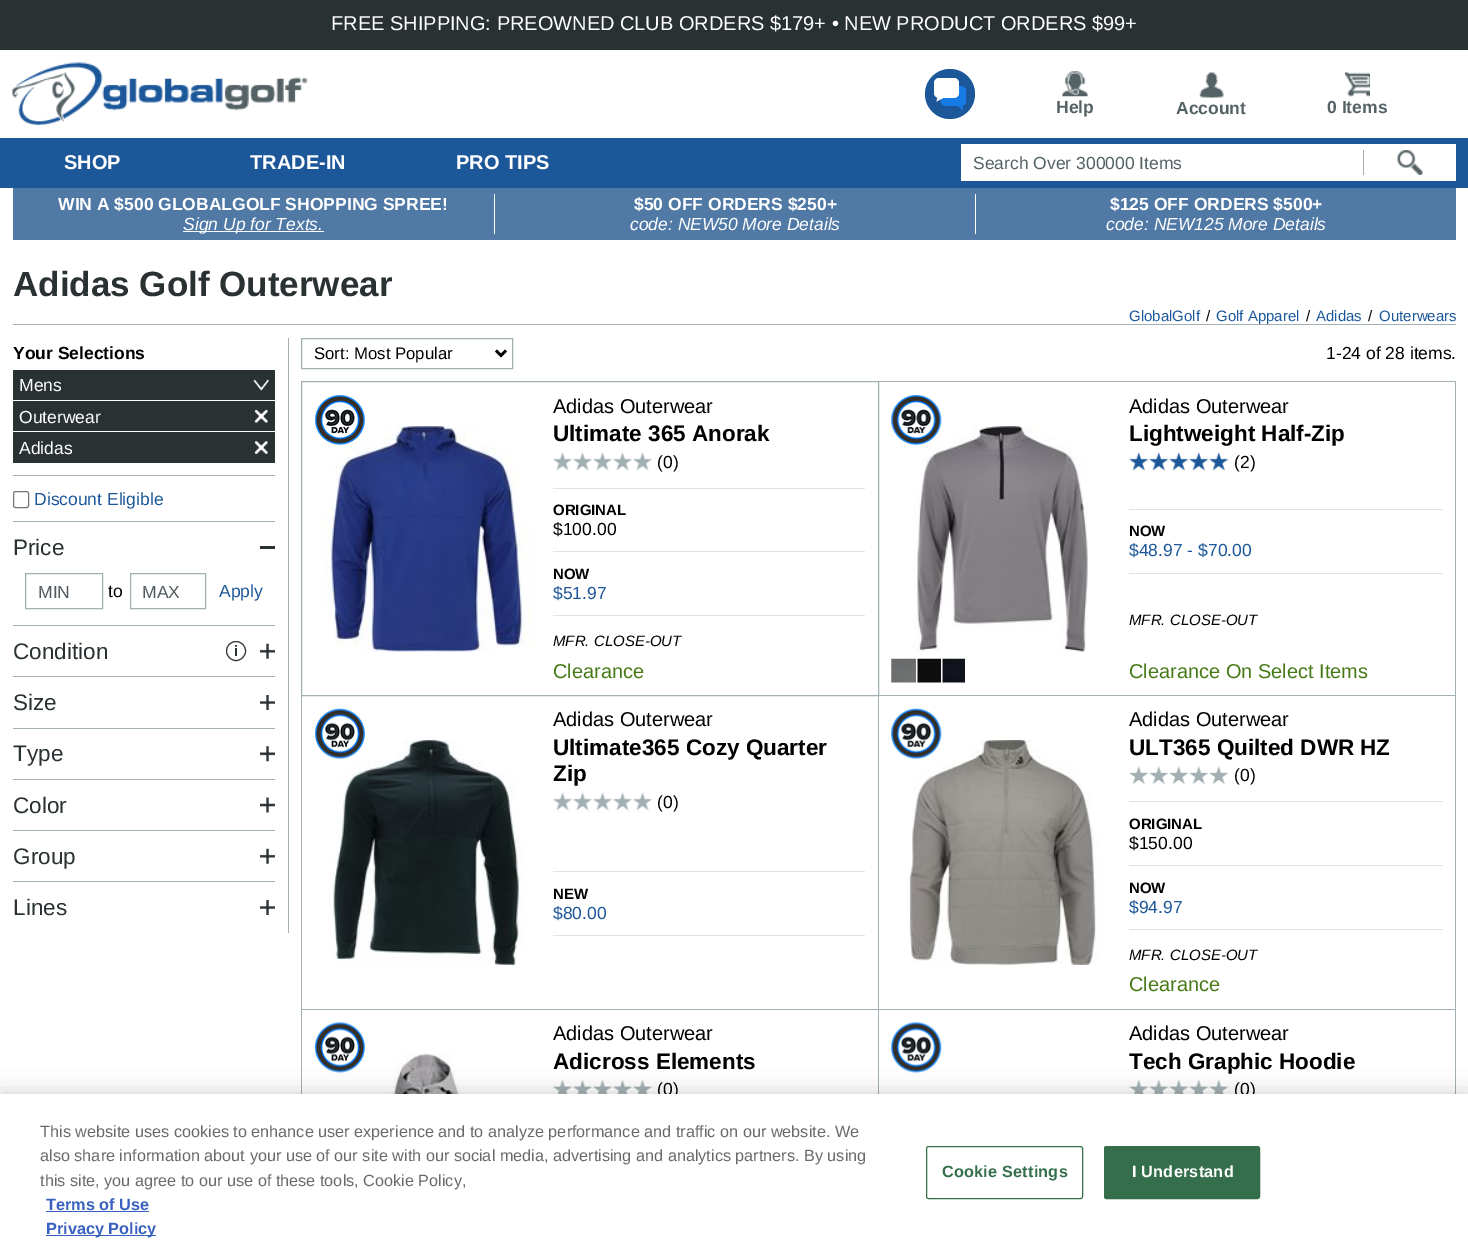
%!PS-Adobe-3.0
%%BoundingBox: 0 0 1468 1253
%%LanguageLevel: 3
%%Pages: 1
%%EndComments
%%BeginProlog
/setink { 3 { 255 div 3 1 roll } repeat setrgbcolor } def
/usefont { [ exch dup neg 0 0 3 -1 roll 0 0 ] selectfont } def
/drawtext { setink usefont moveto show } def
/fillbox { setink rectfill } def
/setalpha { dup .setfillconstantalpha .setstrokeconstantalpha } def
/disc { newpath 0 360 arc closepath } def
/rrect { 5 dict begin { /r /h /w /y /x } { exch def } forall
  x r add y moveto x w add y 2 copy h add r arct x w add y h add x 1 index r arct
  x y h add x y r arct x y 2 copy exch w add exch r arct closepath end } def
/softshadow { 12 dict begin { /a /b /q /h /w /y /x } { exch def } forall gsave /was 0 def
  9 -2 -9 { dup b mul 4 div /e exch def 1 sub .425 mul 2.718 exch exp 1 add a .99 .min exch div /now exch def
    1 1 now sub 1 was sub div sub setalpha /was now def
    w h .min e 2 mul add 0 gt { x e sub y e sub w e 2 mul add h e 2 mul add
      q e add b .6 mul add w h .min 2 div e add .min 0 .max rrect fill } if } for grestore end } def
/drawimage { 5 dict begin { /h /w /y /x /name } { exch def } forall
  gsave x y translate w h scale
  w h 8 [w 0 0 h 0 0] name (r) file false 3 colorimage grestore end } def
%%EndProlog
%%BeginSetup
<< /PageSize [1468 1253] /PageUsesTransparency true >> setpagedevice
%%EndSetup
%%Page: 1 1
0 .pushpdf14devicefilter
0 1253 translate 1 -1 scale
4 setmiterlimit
0 0 1468 1253 255 255 255 fillbox
0 0 1468 50 42 49 51 fillbox
(FREE SHIPPING: PREOWNED CLUB ORDERS $179+ • NEW PRODUCT ORDERS $99+) 331 30 /LiberationSans-Regular 20 255 255 255 drawtext
(assets/img1.rgb) 12 62 296 63 drawimage
28 88 153 setink
950 94 25 disc fill
23 123 229 setink
941 86 25 20 5 rrect fill
255 255 255 setink
934 78 25 20 5 rrect fill
938.5 94 moveto 946 96 lineto 941.5 99 lineto closepath fill
936.5 101.5 moveto 938.5 94 lineto 941.5 99 lineto closepath fill
23 123 229 setink
963 110.5 moveto 957.5 105.5 lineto 962.5 105 lineto closepath fill
(assets/img2.rgb) 1062 71 26 26 drawimage
(Help) 1056 113 /LiberationSans-Bold 17.5 84 98 102 drawtext
(assets/img3.rgb) 1198 72 26 26 drawimage
(Account) 1176 114 /LiberationSans-Bold 17.5 84 98 102 drawtext
(assets/img4.rgb) 1345 72 25 25 drawimage
(0 Items) 1327 113 /LiberationSans-Bold 17.5 84 98 102 drawtext
0 138 1468 50 28 88 153 fillbox
(SHOP) 64 169 /LiberationSans-Bold 20 255 255 255 drawtext
(TRADE-IN) 250 169 /LiberationSans-Bold 20 255 255 255 drawtext
(PRO TIPS) 456 169 /LiberationSans-Bold 20 255 255 255 drawtext
961 144 495 37 255 255 255 fillbox
1363 150 1 25 162 175 179 fillbox
(assets/img5.rgb) 1397 150 26 25 drawimage
(Search Over 300000 Items) 973 169 /LiberationSans-Regular 17.5 84 98 102 drawtext
13 188 1443 52 80 121 166 fillbox
(WIN A $500 GLOBALGOLF SHOPPING SPREE!) 58 210 /LiberationSans-Bold 17.5 255 255 255 drawtext
183 231 141 1 255 255 255 fillbox
(Sign Up for Texts.) 183 230 /LiberationSans-Italic 17.5 255 255 255 drawtext
494 194 1 40 255 255 255 fillbox
($50 OFF ORDERS $250+) 634 210 /LiberationSans-Bold 17.5 255 255 255 drawtext
(code: NEW50) 630 230 /LiberationSans-Italic 17.5 255 255 255 drawtext
(More Details) 742 230 /LiberationSans-Italic 17.5 255 255 255 drawtext
975 194 1 40 255 255 255 fillbox
($125 OFF ORDERS $500+) 1110 210 /LiberationSans-Bold 17.5 255 255 255 drawtext
(code: NEW125) 1106 230 /LiberationSans-Italic 17.5 255 255 255 drawtext
(More Details) 1228 230 /LiberationSans-Italic 17.5 255 255 255 drawtext
13 324 1443 1 162 175 179 fillbox
(Adidas Golf Outerwear) 13 296 /LiberationSans-Bold 35 42 49 51 drawtext
(GlobalGolf) 1129 321 /LiberationSans-Regular 15 28 88 153 drawtext
(/) 1206 321 /LiberationSans-Regular 15 0 0 0 drawtext
(Golf Apparel) 1216 321 /LiberationSans-Regular 15 28 88 153 drawtext
(/) 1306 321 /LiberationSans-Regular 15 0 0 0 drawtext
(Adidas) 1316 321 /LiberationSans-Regular 15 28 88 153 drawtext
(/) 1368 321 /LiberationSans-Regular 15 0 0 0 drawtext
(Outerwears) 1379 321 /LiberationSans-Regular 15 28 88 153 drawtext
288 338 1 595 162 175 179 fillbox
(Your Selections) 13 359 /LiberationSans-Bold 17.5 0 0 0 drawtext
13 370 262 30 42 49 51 fillbox
(assets/img6.rgb) 253 379 16 12 drawimage
(Mens) 19 391 /LiberationSans-Regular 17.5 255 255 255 drawtext
13 401 262 30 42 49 51 fillbox
(assets/img7.rgb) 254 409 14 14 drawimage
(Outerwear) 19 423 /LiberationSans-Regular 17.5 255 255 255 drawtext
13 432 262 31 42 49 51 fillbox
(assets/img8.rgb) 254 441 14 13 drawimage
(Adidas) 19 454 /LiberationSans-Regular 17.5 255 255 255 drawtext
13 475 262 1 162 175 179 fillbox
118 118 118 setink
13.5 491.5 15 16 2 rrect stroke
(Discount Eligible) 34 505 /LiberationSans-Regular 17.5 28 88 153 drawtext
260 546 15 3 42 49 51 fillbox
13 521 262 1 162 175 179 fillbox
(Price) 13 555 /LiberationSans-Regular 22.5 42 49 51 drawtext
162 175 179 setink
25.5 573.5 77 35 rectstroke
(MIN) 38 598 /LiberationSans-Regular 17.5 80 90 94 drawtext
(to) 108 597 /LiberationSans-Regular 17.5 0 0 0 drawtext
162 175 179 setink
130.5 573.5 75 35 rectstroke
(MAX) 142 598 /LiberationSans-Regular 17.5 80 90 94 drawtext
(Apply) 219 597 /LiberationSans-Regular 17.5 28 88 153 drawtext
(assets/img9.rgb) 260 643 15 16 drawimage
13 625 262 1 162 175 179 fillbox
(Condition) 13 659 /LiberationSans-Regular 22.5 42 49 51 drawtext
236 651 9.5 disc stroke
(i) 234 656 /LiberationSans-Bold 15 42 49 51 drawtext
(assets/img10.rgb) 260 695 15 15 drawimage
13 676 262 1 162 175 179 fillbox
(Size) 13 710 /LiberationSans-Regular 22.5 42 49 51 drawtext
(assets/img11.rgb) 260 746 15 16 drawimage
13 728 262 1 162 175 179 fillbox
(Type) 13 761 /LiberationSans-Regular 22.5 42 49 51 drawtext
(assets/img12.rgb) 260 797 15 16 drawimage
13 779 262 1 162 175 179 fillbox
(Color) 13 813 /LiberationSans-Regular 22.5 42 49 51 drawtext
(assets/img9.rgb) 260 848 15 16 drawimage
13 830 262 1 162 175 179 fillbox
(Group) 13 864 /LiberationSans-Regular 22.5 42 49 51 drawtext
(assets/img10.rgb) 260 900 15 15 drawimage
13 881 262 1 162 175 179 fillbox
(Lines) 13 915 /LiberationSans-Regular 22.5 42 49 51 drawtext
162 175 179 setink
301.5 338.5 211 30 rectstroke
0 0 0 setink
2.5 setlinewidth
496 350.5 moveto 501 355.5 lineto 506 350.5 lineto stroke
(Sort: Most Popular) 314 359 /LiberationSans-Regular 16.75 0 0 0 drawtext
(1-24 of 28 items.) 1326 359 /LiberationSans-Regular 17.5 0 0 0 drawtext
162 175 179 setink
1 setlinewidth
301.5 381.5 577 314 rectstroke
(assets/img14.rgb) 321 426 214 226 drawimage
(assets/img13.rgb) 315 395 50 50 drawimage
(Adidas Outerwear) 553 413 /LiberationSans-Regular 20 0 0 0 drawtext
(Ultimate 365 Anorak) 553 441 /LiberationSans-Bold 22.5 0 0 0 drawtext
(assets/img15.rgb) 553 452 19 19 drawimage
(assets/img15.rgb) 573 452 19 19 drawimage
(assets/img15.rgb) 593 452 19 19 drawimage
(assets/img15.rgb) 613 452 19 19 drawimage
(assets/img15.rgb) 633 452 19 19 drawimage
(\(0\)) 657 468 /LiberationSans-Regular 17.5 0 0 0 drawtext
553 488 312 1 223 228 230 fillbox
553 551 312 1 223 228 230 fillbox
(ORIGINAL) 553 515 /LiberationSans-Bold 15 0 0 0 drawtext
($100.00) 553 535 /LiberationSans-Regular 17.5 0 0 0 drawtext
553 615 312 1 223 228 230 fillbox
(NOW) 553 579 /LiberationSans-Bold 15 0 0 0 drawtext
($51.97) 553 599 /LiberationSans-Regular 17.5 28 88 153 drawtext
(MFR. CLOSE-OUT) 553 646 /LiberationSans-Italic 15 0 0 0 drawtext
(Clearance) 553 678 /LiberationSans-Regular 20 71 122 22 drawtext
879 381 577 1 162 175 179 fillbox
1455 381 1 713 162 175 179 fillbox
879 695 577 1 162 175 179 fillbox
(assets/img17.rgb) 913 426 175 226 drawimage
(assets/img16.rgb) 891 395 51 50 drawimage
(assets/img18.rgb) 891 658 25 25 drawimage
(assets/img19.rgb) 917 658 24 25 drawimage
(assets/img20.rgb) 942 658 23 25 drawimage
(Adidas Outerwear) 1129 413 /LiberationSans-Regular 20 0 0 0 drawtext
(Lightweight Half-Zip) 1129 441 /LiberationSans-Bold 22.5 0 0 0 drawtext
(assets/img21.rgb) 1129 452 20 19 drawimage
(assets/img21.rgb) 1149 452 20 19 drawimage
(assets/img21.rgb) 1169 452 20 19 drawimage
(assets/img21.rgb) 1189 452 20 19 drawimage
(assets/img21.rgb) 1209 452 20 19 drawimage
(\(2\)) 1234 468 /LiberationSans-Regular 17.5 0 0 0 drawtext
1129 509 314 1 223 228 230 fillbox
1129 573 314 1 223 228 230 fillbox
(NOW) 1129 536 /LiberationSans-Bold 15 0 0 0 drawtext
($48.97 - $70.00) 1129 556 /LiberationSans-Regular 17.5 28 88 153 drawtext
(MFR. CLOSE-OUT) 1129 625 /LiberationSans-Italic 15 0 0 0 drawtext
(Clearance On Select Items) 1129 678 /LiberationSans-Regular 20 71 122 22 drawtext
878 696 1 398 162 175 179 fillbox
301 1009 1155 1 162 175 179 fillbox
301 696 1 398 162 175 179 fillbox
(assets/img23.rgb) 329 740 196 225 drawimage
(assets/img22.rgb) 315 708 50 51 drawimage
(Adidas Outerwear) 553 726 /LiberationSans-Regular 20 0 0 0 drawtext
(Ultimate365 Cozy Quarter) 553 755 /LiberationSans-Bold 22.5 0 0 0 drawtext
(Zip) 553 781 /LiberationSans-Bold 22.5 0 0 0 drawtext
(assets/img15.rgb) 553 792 19 19 drawimage
(assets/img15.rgb) 573 792 19 19 drawimage
(assets/img15.rgb) 593 792 19 19 drawimage
(assets/img15.rgb) 613 792 19 19 drawimage
(assets/img15.rgb) 633 792 19 19 drawimage
(\(0\)) 657 808 /LiberationSans-Regular 17.5 0 0 0 drawtext
553 871 312 1 223 228 230 fillbox
553 935 312 1 223 228 230 fillbox
(NEW) 553 899 /LiberationSans-Bold 15 0 0 0 drawtext
($80.00) 553 919 /LiberationSans-Regular 17.5 28 88 153 drawtext
(assets/img25.rgb) 909 740 191 225 drawimage
(assets/img24.rgb) 891 708 51 51 drawimage
(Adidas Outerwear) 1129 726 /LiberationSans-Regular 20 0 0 0 drawtext
(ULT365 Quilted DWR HZ) 1129 755 /LiberationSans-Bold 22.5 0 0 0 drawtext
(assets/img26.rgb) 1129 766 20 18 drawimage
(assets/img26.rgb) 1149 766 20 18 drawimage
(assets/img26.rgb) 1169 766 20 18 drawimage
(assets/img26.rgb) 1189 766 20 18 drawimage
(assets/img26.rgb) 1209 766 20 18 drawimage
(\(0\)) 1234 781 /LiberationSans-Regular 17.5 0 0 0 drawtext
1129 801 314 1 223 228 230 fillbox
1129 865 314 1 223 228 230 fillbox
(ORIGINAL) 1129 829 /LiberationSans-Bold 15 0 0 0 drawtext
($150.00) 1129 849 /LiberationSans-Regular 17.5 0 0 0 drawtext
1129 929 314 1 223 228 230 fillbox
(NOW) 1129 893 /LiberationSans-Bold 15 0 0 0 drawtext
($94.97) 1129 913 /LiberationSans-Regular 17.5 28 88 153 drawtext
(MFR. CLOSE-OUT) 1129 960 /LiberationSans-Italic 15 0 0 0 drawtext
(Clearance) 1129 991 /LiberationSans-Regular 20 71 122 22 drawtext
(assets/img28.rgb) 355 1053 146 41 drawimage
(assets/img27.rgb) 315 1022 50 51 drawimage
(Adidas Outerwear) 553 1040 /LiberationSans-Regular 20 0 0 0 drawtext
(Adicross Elements) 553 1069 /LiberationSans-Bold 22.5 0 0 0 drawtext
(assets/img29.rgb) 553 1080 19 14 drawimage
(assets/img29.rgb) 573 1080 19 14 drawimage
(assets/img29.rgb) 593 1080 19 14 drawimage
(assets/img29.rgb) 613 1080 19 14 drawimage
(assets/img29.rgb) 633 1080 19 14 drawimage
(\(0\)) 657 1095 /LiberationSans-Regular 17.5 0 0 0 drawtext
(assets/img30.rgb) 891 1022 51 51 drawimage
(Adidas Outerwear) 1129 1040 /LiberationSans-Regular 20 0 0 0 drawtext
(Tech Graphic Hoodie) 1129 1069 /LiberationSans-Bold 22.5 0 0 0 drawtext
(assets/img31.rgb) 1129 1080 20 14 drawimage
(assets/img31.rgb) 1149 1080 20 14 drawimage
(assets/img31.rgb) 1169 1080 20 14 drawimage
(assets/img31.rgb) 1189 1080 20 14 drawimage
(assets/img31.rgb) 1209 1080 20 14 drawimage
(\(0\)) 1234 1095 /LiberationSans-Regular 17.5 0 0 0 drawtext
0 1094 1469 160 0 11 0.2 softshadow
0 1094 1468 159 255 255 255 fillbox
(This website uses cookies to enhance user experience and to analyze performance and traffic on our website. We) 40 1137 /LiberationSans-Regular 16.25 105 105 105 drawtext
(also share information about your use of our site with our social media, advertising and analytics partners. By using) 40 1161 /LiberationSans-Regular 16.25 105 105 105 drawtext
(this site, you agree to our use of these tools, Cookie Policy,) 40 1186 /LiberationSans-Regular 16.25 105 105 105 drawtext
(Terms of Use) 46 1210 /LiberationSans-Bold 16.25 56 96 190 drawtext
46 1211 103 1 56 96 190 fillbox
46 1235 110 1 56 96 190 fillbox
(Privacy Policy) 46 1234 /LiberationSans-Bold 16.25 56 96 190 drawtext
52 110 74 setink
926.5 1146.5 156 52 2 rrect stroke
942 1177 moveto 0.2 0 (Cookie Settings) ashow
1104.5 1146.5 155 52 2 rrect gsave fill grestore
stroke
255 255 255 setink
1132 1177 moveto 0.2 0 (I Understand) ashow
.poppdf14devicefilter showpage
%%EOF
